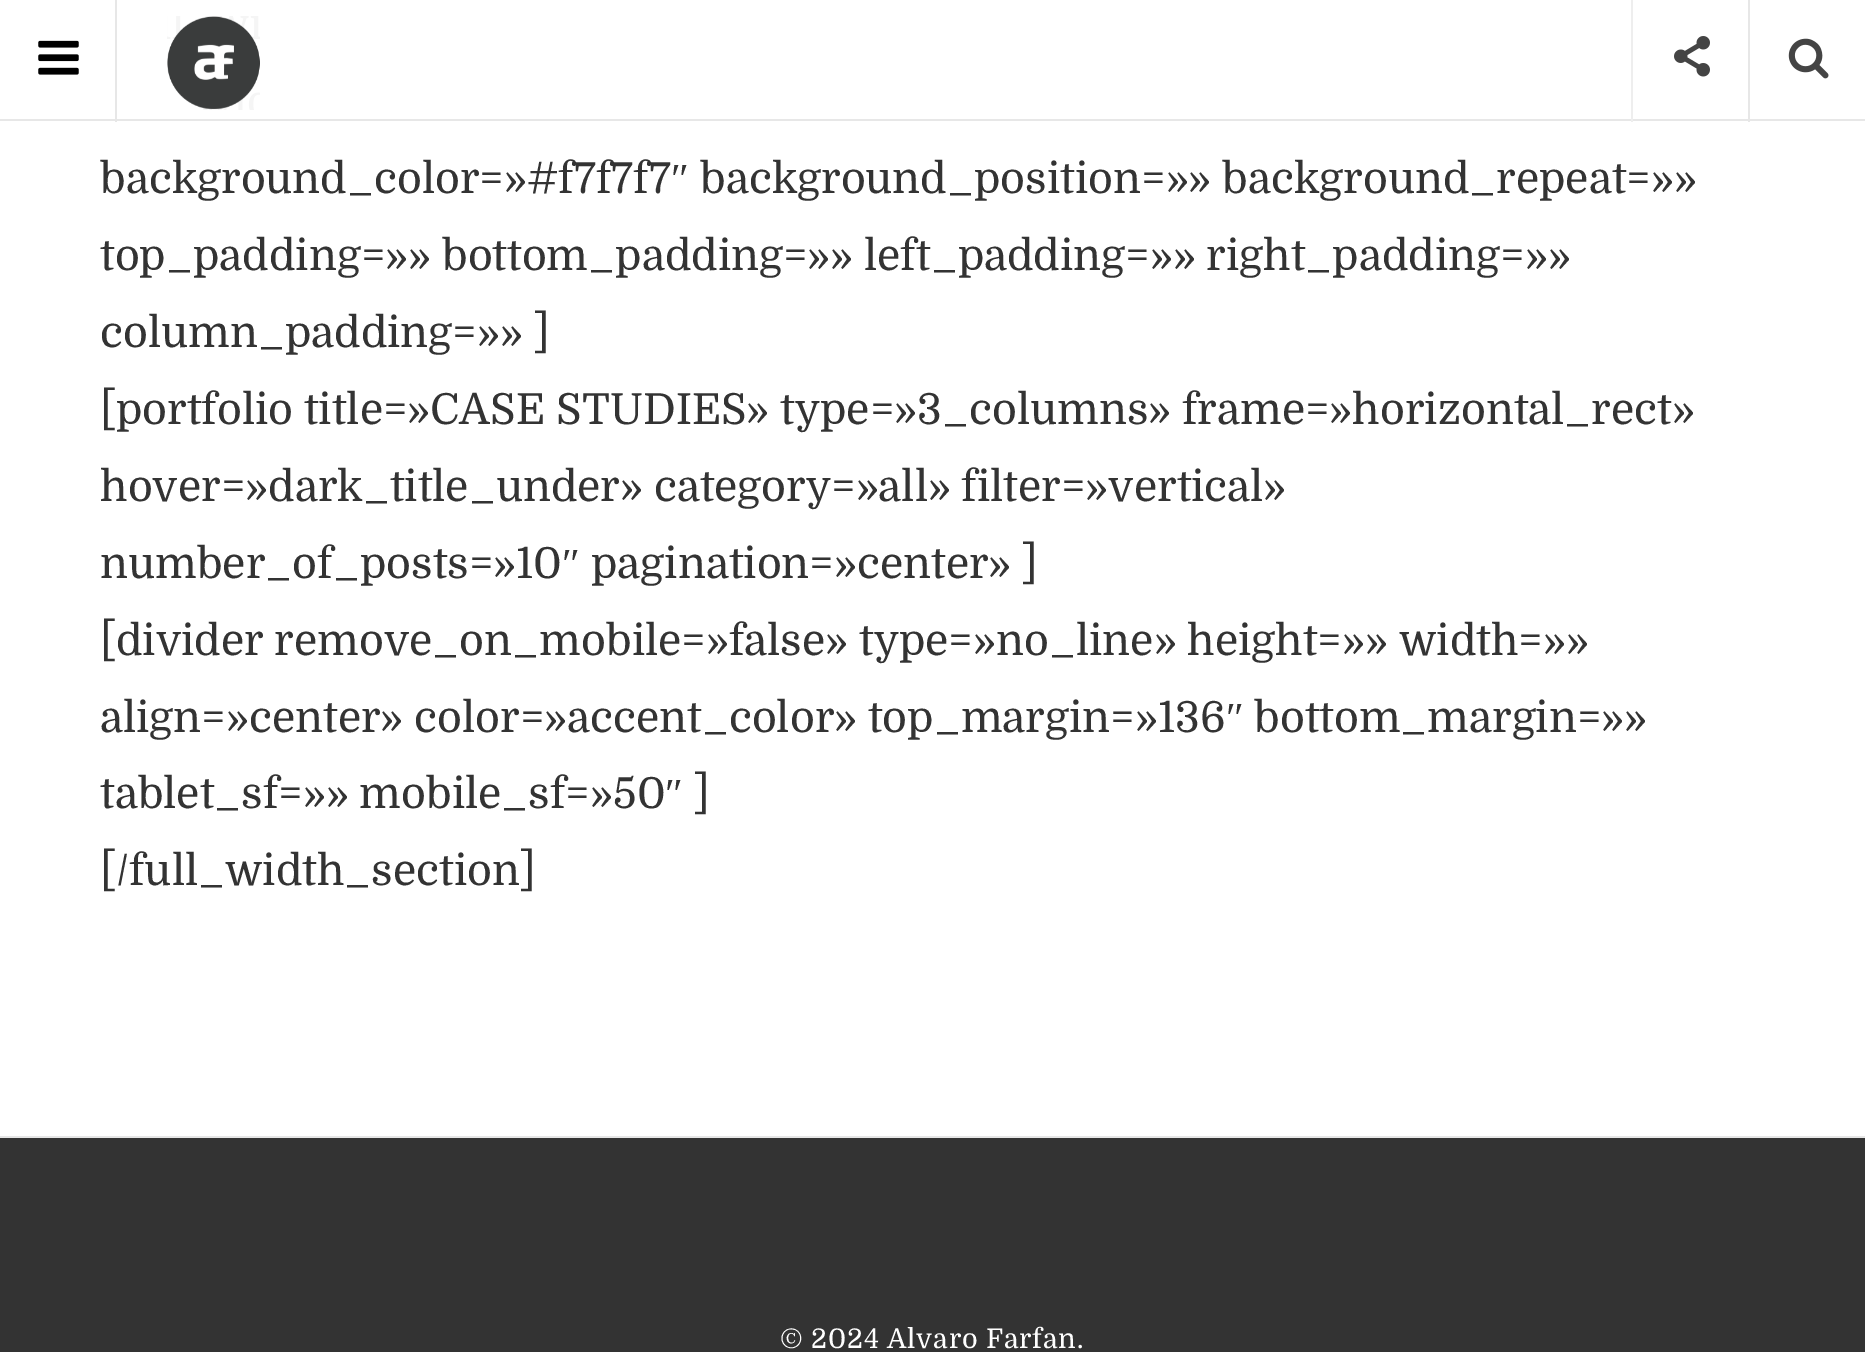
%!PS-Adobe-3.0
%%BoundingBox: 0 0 1865 1352
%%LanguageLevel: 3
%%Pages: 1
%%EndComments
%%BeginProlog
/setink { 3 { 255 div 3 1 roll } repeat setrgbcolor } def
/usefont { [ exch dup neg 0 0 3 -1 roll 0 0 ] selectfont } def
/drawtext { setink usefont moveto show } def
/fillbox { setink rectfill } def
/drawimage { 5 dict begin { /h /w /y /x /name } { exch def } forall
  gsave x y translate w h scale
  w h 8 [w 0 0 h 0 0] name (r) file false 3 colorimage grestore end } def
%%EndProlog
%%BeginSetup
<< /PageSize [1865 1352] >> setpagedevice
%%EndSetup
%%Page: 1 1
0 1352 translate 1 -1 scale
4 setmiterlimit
0 0 1865 1352 255 255 255 fillbox
0 119 1865 2 231 231 231 fillbox
115 0 2 122 231 231 231 fillbox
(assets/img1.rgb) 38 40 41 35 drawimage
(assets/img2.rgb) 167 16 93 94 drawimage
1631 0 2 122 238 238 238 fillbox
(assets/img3.rgb) 1674 36 36 41 drawimage
1748 0 2 122 231 231 231 fillbox
(assets/img4.rgb) 1788 38 41 41 drawimage
(background_color=»#f7f7f7) 100 193 /Domine-Regular 42.75 51 51 51 drawtext
(″) 671 193 /LiberationSerif-Regular 42.75 51 51 51 drawtext
(background_position=»» background_repeat=»») 700 193 /Domine-Regular 42.75 51 51 51 drawtext
(top_padding=»» bottom_padding=»» left_padding=»» right_padding=»») 100 270 /Domine-Regular 42.75 51 51 51 drawtext
(column_padding=»» ]) 100 347 /Domine-Regular 42.75 51 51 51 drawtext
([portfolio title=»CASE STUDIES» type=»3_columns» frame=»horizontal_rect») 100 424 /Domine-Regular 42.75 51 51 51 drawtext
(hover=»dark_title_under» category=»all» filter=»vertical») 100 501 /Domine-Regular 42.75 51 51 51 drawtext
(number_of_posts=»10) 100 578 /Domine-Regular 42.75 51 51 51 drawtext
(″) 562 578 /LiberationSerif-Regular 42.75 51 51 51 drawtext
(pagination=»center» ]) 591 578 /Domine-Regular 42.75 51 51 51 drawtext
([divider remove_on_mobile=»false» type=»no_line» height=»» width=»») 100 655 /Domine-Regular 42.75 51 51 51 drawtext
(align=»center» color=»accent_color» top_margin=»136) 100 732 /Domine-Regular 42.75 51 51 51 drawtext
(″) 1226 732 /LiberationSerif-Regular 42.75 51 51 51 drawtext
(bottom_margin=»») 1254 732 /Domine-Regular 42.75 51 51 51 drawtext
(tablet_sf=»» mobile_sf=»50) 100 808 /Domine-Regular 42.75 51 51 51 drawtext
(″) 665 808 /LiberationSerif-Regular 42.75 51 51 51 drawtext
(]) 694 808 /Domine-Regular 42.75 51 51 51 drawtext
([/full_width_section]) 100 885 /Domine-Regular 42.75 51 51 51 drawtext
0 1138 1865 214 51 51 51 fillbox
0 1136 1865 2 230 230 230 fillbox
/Domine-Regular 27 usefont
255 255 255 setink
780 1348 moveto 0.8 0 (© 2024 Alvaro Farfan.) ashow
showpage
%%EOF
